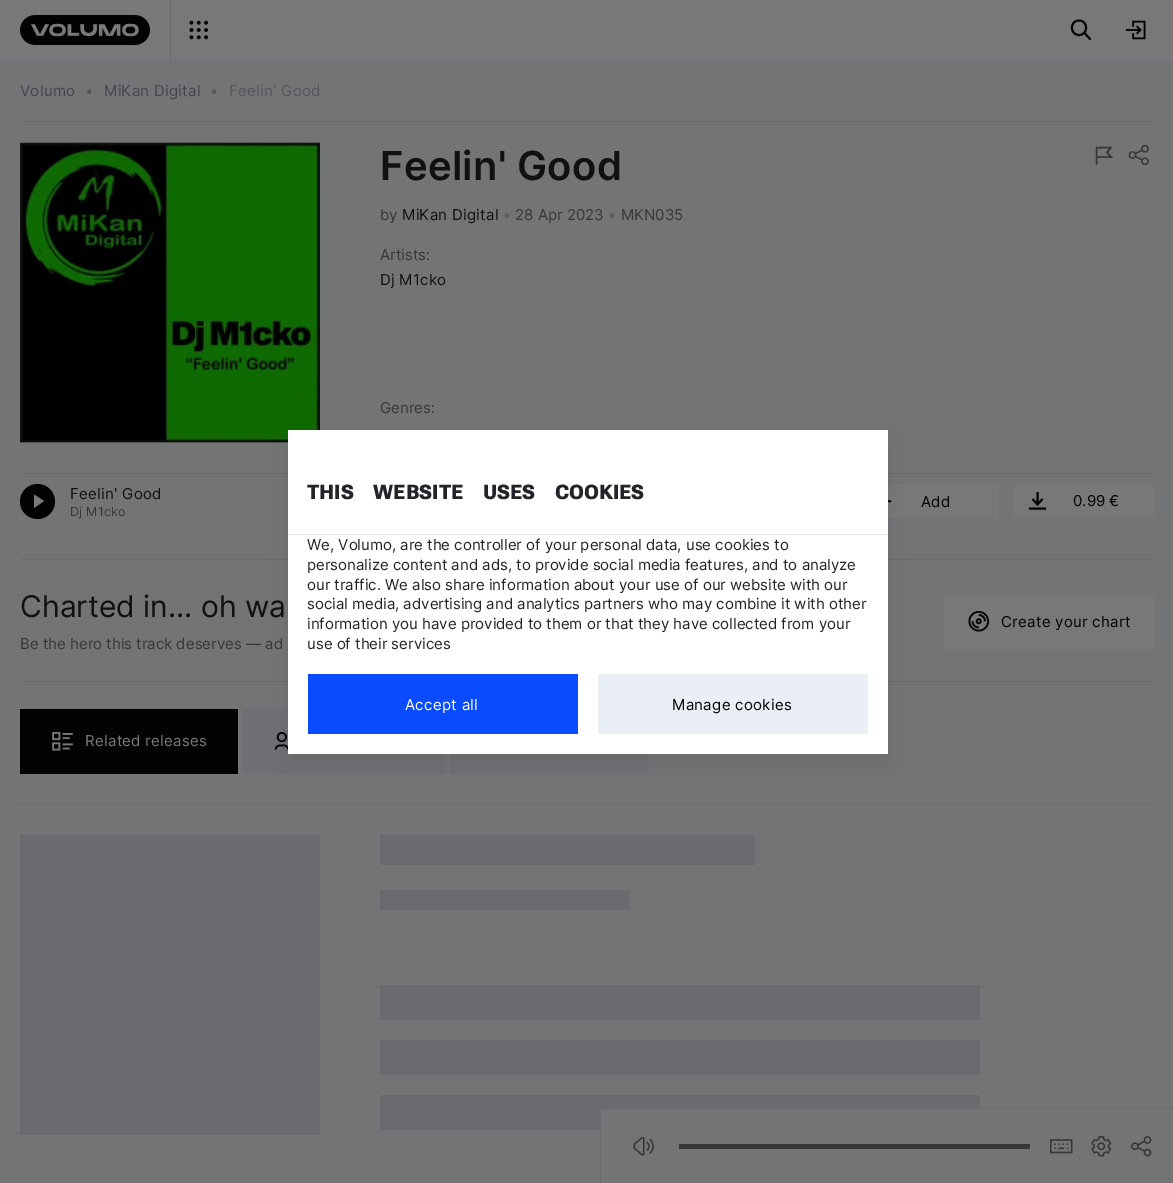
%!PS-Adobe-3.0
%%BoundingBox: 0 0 1173 1183
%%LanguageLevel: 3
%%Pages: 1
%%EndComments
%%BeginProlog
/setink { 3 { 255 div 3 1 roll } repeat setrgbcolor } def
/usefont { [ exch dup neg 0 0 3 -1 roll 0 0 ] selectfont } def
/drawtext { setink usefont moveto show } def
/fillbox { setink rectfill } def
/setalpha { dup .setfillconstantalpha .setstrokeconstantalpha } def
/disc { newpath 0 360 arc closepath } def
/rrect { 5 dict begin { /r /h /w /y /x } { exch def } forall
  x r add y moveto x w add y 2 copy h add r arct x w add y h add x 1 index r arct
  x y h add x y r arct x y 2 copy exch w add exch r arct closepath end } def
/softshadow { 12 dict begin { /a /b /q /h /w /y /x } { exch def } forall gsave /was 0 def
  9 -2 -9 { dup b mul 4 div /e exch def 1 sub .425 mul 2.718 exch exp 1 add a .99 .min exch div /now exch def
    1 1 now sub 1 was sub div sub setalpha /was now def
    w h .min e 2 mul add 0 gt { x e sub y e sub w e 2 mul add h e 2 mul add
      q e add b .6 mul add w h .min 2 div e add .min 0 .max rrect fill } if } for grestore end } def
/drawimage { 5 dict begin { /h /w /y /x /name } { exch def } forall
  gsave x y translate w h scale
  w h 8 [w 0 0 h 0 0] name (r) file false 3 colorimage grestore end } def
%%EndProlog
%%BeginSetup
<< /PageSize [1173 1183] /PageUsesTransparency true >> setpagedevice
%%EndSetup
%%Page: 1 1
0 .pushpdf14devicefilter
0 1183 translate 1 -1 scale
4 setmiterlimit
0 0 1173 1183 115 116 118 fillbox
0 0 1173 60 120 120 120 fillbox
0 60 1173 1 110 112 115 fillbox
(assets/img1.rgb) 20 15 130 30 drawimage
170 0 1 60 106 108 110 fillbox
(assets/img2.rgb) 189 20 19 20 drawimage
2 3 5 setink
1.9 setlinewidth
1 setlinecap
1 setlinejoin
1079 35 moveto 1088.5 35 1088.5 20.5 1079 20.5 curveto 1069.5 20.5 1069.5 35 1079 35 curveto stroke
0 setlinecap
1090.5 39.5 moveto 1084.5 33 lineto stroke
(assets/img3.rgb) 1125 20 21 20 drawimage
/Inter-Regular 15 usefont
68 70 77 setink
20 96 moveto 0.3 0 (Volumo) ashow
(•) 85 96 /Inter-Regular 15 84 86 91 drawtext
68 70 77 setink
104 96 moveto 0.3 0 (MiKan Digital) ashow
(•) 210 96 /Inter-Regular 15 84 86 91 drawtext
229 96 moveto 0.3 0 (Feelin' Good) ashow
20 121 1134 1 106 108 110 fillbox
20 442 268 1 110 112 115 fillbox
(assets/img4.rgb) 20 142 300 301 drawimage
0.13 setalpha
64 64 64 setink
1 setlinewidth
0 setlinejoin
20.5 143.5 299 299 rectstroke
/Inter-SemiBold 40 usefont
1 setalpha
16 17 19 setink
380 180 moveto 0.3 0 (Feelin' Good) ashow
(by) 380 220 /Inter-Regular 15 53 55 57 drawtext
16 17 19 setink
402 220 moveto 0.3 0 (MiKan Digital) ashow
(•) 503 220 /Inter-Regular 15 92 94 96 drawtext
(28 Apr 2023) 515 220 /Inter-Regular 15 53 55 57 drawtext
(•) 608 220 /Inter-Regular 15 92 94 96 drawtext
(MKN035) 621 220 /Inter-Regular 15 53 55 57 drawtext
1.6 setlinewidth
1096.5 157 moveto 1111 157 lineto 1107 152.5 lineto 1111 147.5 lineto 1096.5 147.5 lineto 1096.5 164.5 lineto stroke
(assets/img5.rgb) 1128 144 21 22 drawimage
(Artists:) 380 260 /Inter-Regular 15 53 55 57 drawtext
16 17 19 setink
380 285 moveto 0.3 0 (Dj M1cko) ashow
(Genres:) 380 413 /Inter-Regular 15 53 55 57 drawtext
20 473 1134 1 106 108 110 fillbox
2 3 5 setink
37.5 501.5 17.5 disc fill
120 120 120 setink
34 494.5 moveto 44 501 lineto 34 508 lineto closepath fill
16 17 19 setink
70 499 moveto 0.3 0 (Feelin' Good) ashow
/Inter-Regular 12.5 usefont
53 55 57 setink
70 516 moveto 0.3 0 (Dj M1cko) ashow
888 484 111 35 120 120 120 fillbox
(assets/img6.rgb) 888 500 4 3 drawimage
/Inter-Regular 15 usefont
2 3 5 setink
921 507 moveto 0.3 0 (Add) ashow
1014 484 140 35 120 120 120 fillbox
2 3 5 setink
1.9 setlinewidth
1029 508.5 moveto 1046 508.5 lineto 1042.5 499 moveto 1037.5 504.5 lineto 1032.5 499 lineto 1037.5 492 moveto 1037.5 504.5 lineto stroke
(0.99 €) 1073 506 /Inter-Regular 15 2 3 5 drawtext
20 559 1134 1 106 108 110 fillbox
(Charted in... oh wa) 20 617 /Inter-Regular 30 16 17 19 drawtext
(Be the hero this track deserves — ad) 20 649 /Inter-Regular 15 53 55 57 drawtext
944 594 210 55 120 120 120 fillbox
(assets/img7.rgb) 968 610 22 22 drawimage
2 3 5 setink
1001 627 moveto 0.3 0 (Create your chart) ashow
20 681 1134 1 106 108 110 fillbox
20 709 218 65 2 3 5 fillbox
(assets/img8.rgb) 52 731 21 20 drawimage
120 120 120 setink
85 746 moveto 0.3 0 (Related releases) ashow
243 709 202 65 110 112 115 fillbox
(assets/img9.rgb) 274 732 14 18 drawimage
450 754 199 20 110 112 115 fillbox
20 804 1134 1 106 108 110 fillbox
gsave 20 835 moveto 20 1135 lineto 320 1135 lineto 320 835 lineto closepath 380 835 moveto 380 865 lineto 755 865 lineto 755 835 lineto closepath 380 890 moveto 380 910 lineto 630 910 lineto 630 890 lineto closepath 380 985 moveto 380 1020 lineto 980 1020 lineto 980 985 lineto closepath 380 1040 moveto 380 1075 lineto 980 1075 lineto 980 1040 lineto closepath 380 1095 moveto 380 1130 lineto 980 1130 lineto 980 1095 lineto closepath eoclip newpath
<< /ShadingType 2 /ColorSpace /DeviceRGB /Coords [-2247 835 -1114 835] /Extend [true true] /Function << /FunctionType 3 /Domain [0 1] /Functions [<< /FunctionType 2 /Domain [0 1] /C0 [0.416 0.42 0.431] /C1 [0.471 0.471 0.471] /N 1 >> << /FunctionType 2 /Domain [0 1] /C0 [0.471 0.471 0.471] /C1 [0.416 0.42 0.431] /N 1 >>] /Bounds [0.5] /Encode [0 1 0 1] >> >> shfill grestore
601 1109 379 21 115 116 118 fillbox
600 1130 1 53 106 108 110 fillbox
980 1108 193 1 106 108 110 fillbox
(assets/img10.rgb) 633 1137 21 19 drawimage
679 1144 352 5 53 55 57 fillbox
1030 1144 3 5 120 120 120 fillbox
(assets/img11.rgb) 1050 1139 23 15 drawimage
(assets/img12.rgb) 1091 1136 21 21 drawimage
(assets/img13.rgb) 1131 1136 21 21 drawimage
0 0 0 setink
288 440 600 324 0 15 0.09 softshadow
288 430 600 324 255 255 255 fillbox
0.09 setalpha
288 534 600 1 0 0 0 fillbox
/RobotoFlex-Black 20 usefont
1 setalpha
34 36 41 setink
307 499 moveto 15 0 32 (THIS WEBSITE USES COOKIES) widthshow
(We, Volumo, are the controller of your personal data, use cookies to) 307 550 /Inter-Regular 15 34 36 41 drawtext
(personalize content and ads, to provide social media features, and to analyze) 307 570 /Inter-Regular 15 34 36 41 drawtext
(our traffic. We also share information about your use of our website with our) 307 590 /Inter-Regular 15 34 36 41 drawtext
(social media, advertising and analytics partners who may combine it with other) 307 609 /Inter-Regular 15 34 36 41 drawtext
(information you have provided to them or that they have collected from your) 307 629 /Inter-Regular 15 34 36 41 drawtext
(use of their services) 307 649 /Inter-Regular 15 34 36 41 drawtext
308 674 270 60 10 75 255 fillbox
255 255 255 setink
405 710 moveto 0.3 0 (Accept all) ashow
598 674 270 60 234 239 245 fillbox
2 3 5 setink
672 710 moveto 0.3 0 (Manage cookies) ashow
.poppdf14devicefilter showpage
%%EOF
